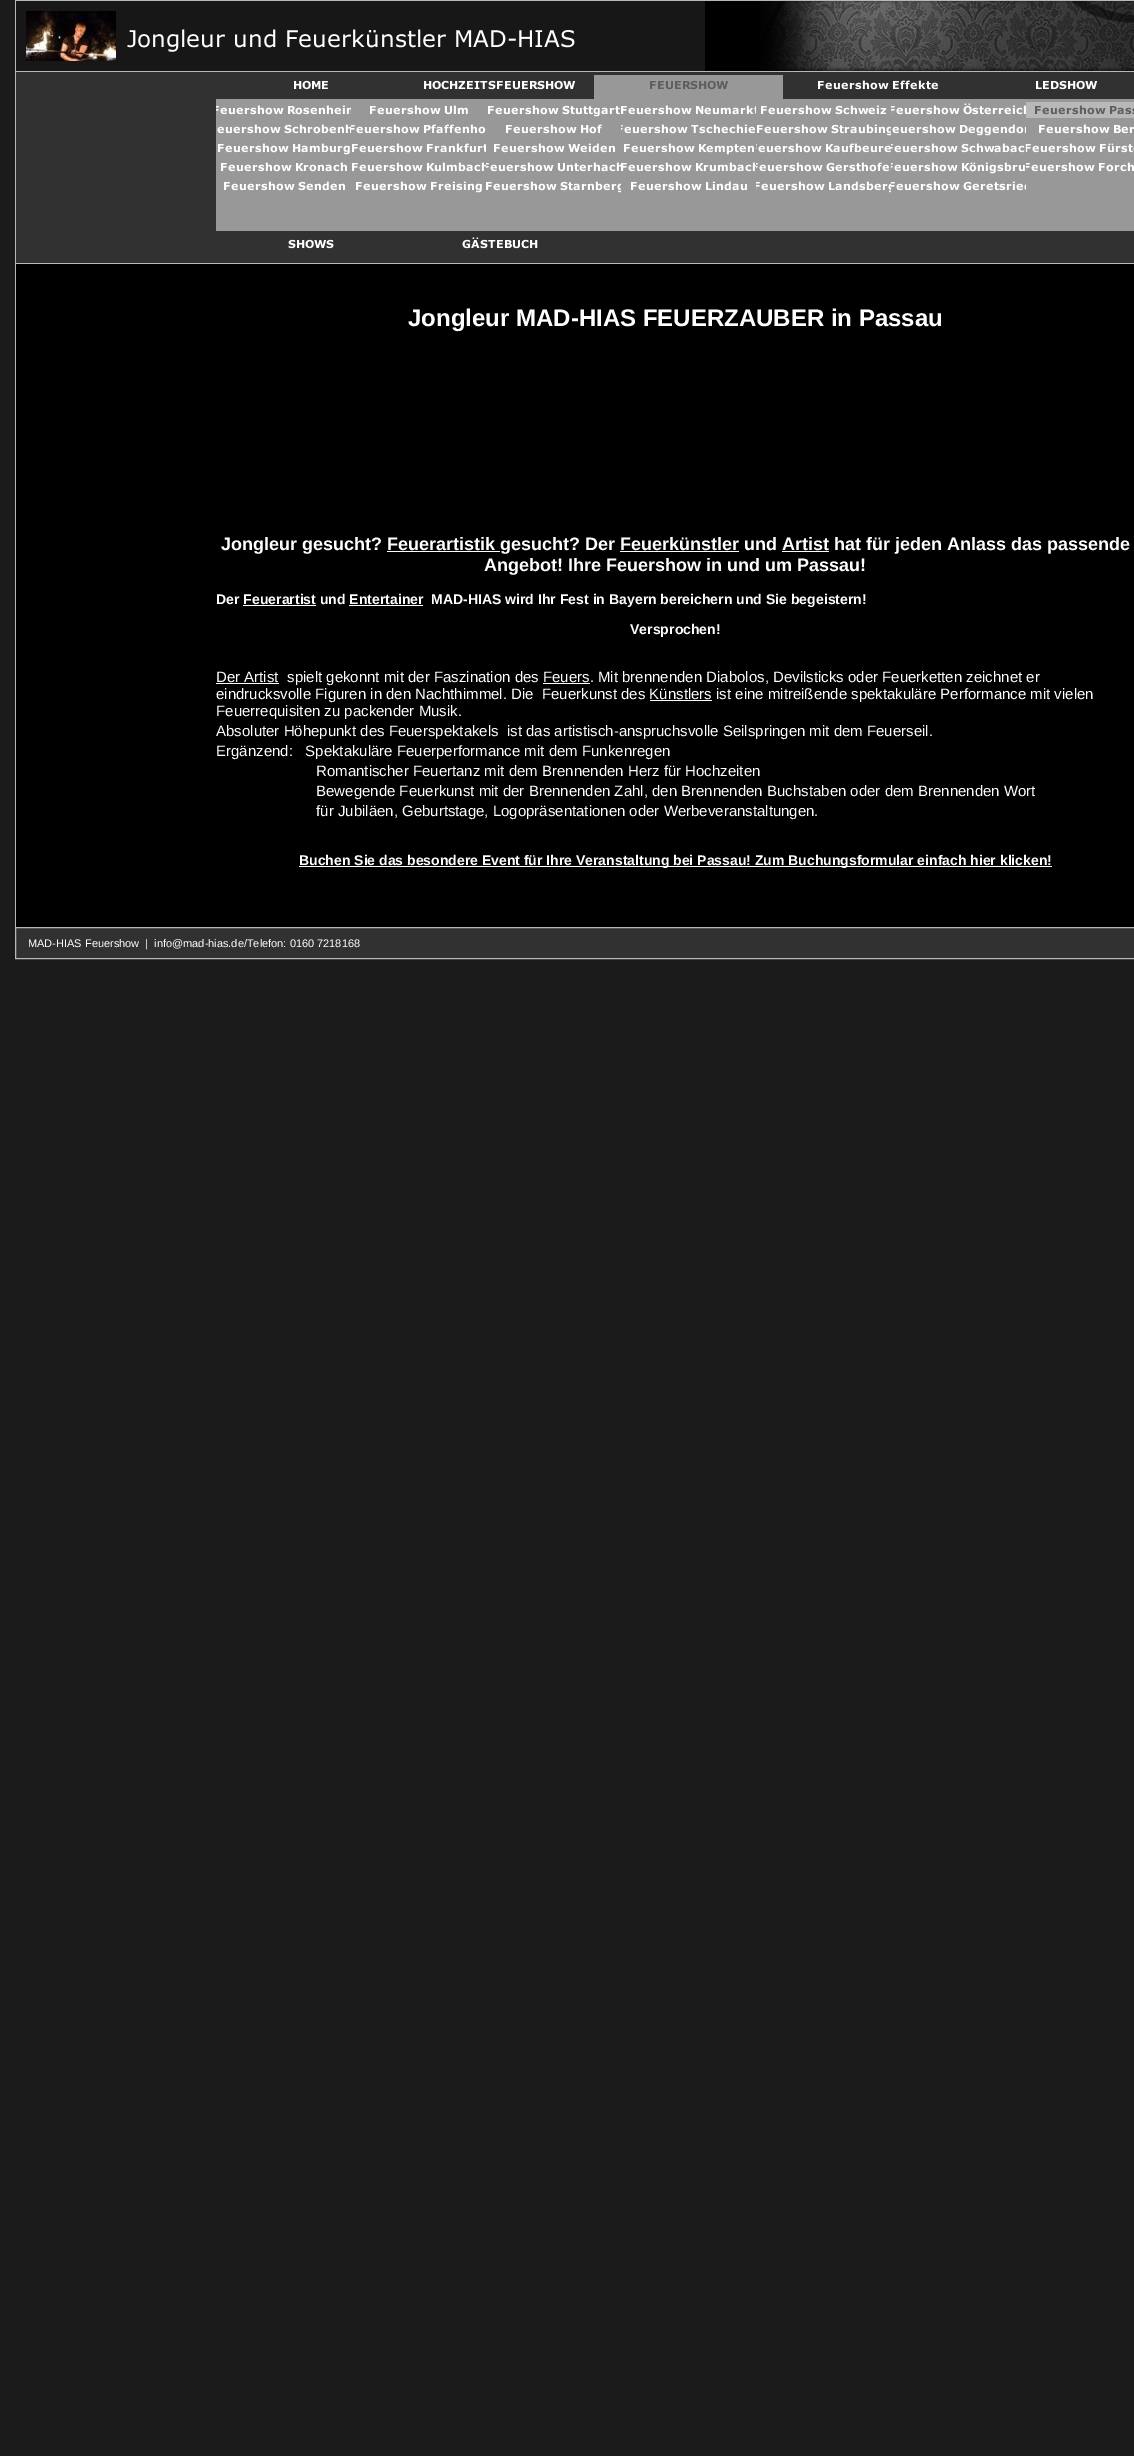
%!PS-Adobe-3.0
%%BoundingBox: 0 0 1134 2456
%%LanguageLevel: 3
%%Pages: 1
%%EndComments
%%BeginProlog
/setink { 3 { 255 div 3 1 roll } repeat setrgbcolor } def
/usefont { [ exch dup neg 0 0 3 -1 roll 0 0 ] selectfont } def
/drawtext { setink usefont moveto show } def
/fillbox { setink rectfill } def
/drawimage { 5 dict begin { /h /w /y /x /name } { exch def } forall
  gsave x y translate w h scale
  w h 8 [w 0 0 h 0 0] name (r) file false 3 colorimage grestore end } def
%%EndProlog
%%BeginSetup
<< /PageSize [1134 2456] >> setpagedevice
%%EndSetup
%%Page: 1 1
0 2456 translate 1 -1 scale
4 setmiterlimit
0 0 1134 2456 27 27 27 fillbox
16 1 689 70 23 23 23 fillbox
15 0 1119 1 184 184 184 fillbox
15 0 1 927 184 184 184 fillbox
(assets/img1.rgb) 26 11 90 50 drawimage
(assets/img2.rgb) 127 29 448 23 drawimage
(assets/img3.rgb) 705 1 429 70 drawimage
16 72 1118 191 49 49 49 fillbox
16 71 1118 1 184 184 184 fillbox
16 263 1118 1 184 184 184 fillbox
(assets/img4.rgb) 294 80 34 10 drawimage
(assets/img5.rgb) 424 80 152 10 drawimage
(assets/img6.rgb) 594 75 189 24 drawimage
(assets/img7.rgb) 818 80 120 10 drawimage
(assets/img8.rgb) 1036 80 62 10 drawimage
216 99 918 132 152 152 152 fillbox
(assets/img9.rgb) 216 105 135 10 drawimage
(assets/img10.rgb) 370 105 98 10 drawimage
(assets/img11.rgb) 488 105 132 12 drawimage
(assets/img12.rgb) 621 105 135 10 drawimage
(assets/img13.rgb) 761 105 126 10 drawimage
(assets/img14.rgb) 891 103 135 12 drawimage
(assets/img15.rgb) 1026 102 108 16 drawimage
(assets/img16.rgb) 217 124 134 10 drawimage
(assets/img17.rgb) 351 124 135 10 drawimage
(assets/img18.rgb) 506 124 96 10 drawimage
(assets/img19.rgb) 621 124 134 10 drawimage
(assets/img20.rgb) 757 124 134 12 drawimage
(assets/img21.rgb) 892 124 134 12 drawimage
(assets/img22.rgb) 1039 124 95 10 drawimage
(assets/img23.rgb) 218 143 132 12 drawimage
(assets/img24.rgb) 352 143 134 10 drawimage
(assets/img25.rgb) 494 143 121 10 drawimage
(assets/img26.rgb) 624 143 130 12 drawimage
(assets/img27.rgb) 756 143 135 10 drawimage
(assets/img28.rgb) 891 143 135 10 drawimage
(assets/img29.rgb) 1026 143 108 10 drawimage
(assets/img30.rgb) 221 162 126 10 drawimage
(assets/img31.rgb) 352 162 134 10 drawimage
(assets/img32.rgb) 486 162 135 10 drawimage
(assets/img33.rgb) 621 162 135 10 drawimage
(assets/img34.rgb) 756 162 135 10 drawimage
(assets/img35.rgb) 891 162 134 12 drawimage
(assets/img36.rgb) 1026 162 108 10 drawimage
(assets/img37.rgb) 224 181 121 10 drawimage
(assets/img38.rgb) 356 181 126 12 drawimage
(assets/img39.rgb) 486 181 135 12 drawimage
(assets/img40.rgb) 631 181 116 10 drawimage
(assets/img41.rgb) 756 181 135 12 drawimage
(assets/img42.rgb) 891 181 135 10 drawimage
(assets/img43.rgb) 288 239 46 10 drawimage
(assets/img44.rgb) 462 237 76 12 drawimage
16 264 1118 663 0 0 0 fillbox
(Jongleur MAD-HIAS FEUERZAUBER in Passau) 408 326 /LiberationSans-Bold 24 255 255 255 drawtext
(Jongleur gesucht? Feuerartistik gesucht? Der Feuerkünstler und Artist hat für jeden Anlass das passende) 221 550 /LiberationSans-Bold 18 255 255 255 drawtext
387 551 113 1 255 255 255 fillbox
620 551 119 1 255 255 255 fillbox
782 551 47 1 255 255 255 fillbox
(Angebot! Ihre Feuershow in und um Passau!) 484 571 /LiberationSans-Bold 18 255 255 255 drawtext
(Der Feuerartist und Entertainer) 216 604 /LiberationSans-Bold 14.05 255 255 255 drawtext
(MAD-HIAS wird Ihr Fest in Bayern bereichern und Sie begeistern!) 431 604 /LiberationSans-Bold 14.05 255 255 255 drawtext
243 605 73 1 255 255 255 fillbox
349 605 74 1 255 255 255 fillbox
(Versprochen!) 630 634 /LiberationSans-Bold 14.05 255 255 255 drawtext
(Der Artist) 216 682 /LiberationSans-Regular 15 255 255 255 drawtext
216 683 63 1 255 255 255 fillbox
(spielt gekonnt mit der Faszination des Feuers. Mit brennenden Diabolos, Devilsticks oder Feuerketten zeichnet er) 287 682 /LiberationSans-Regular 15 255 255 255 drawtext
543 683 47 1 255 255 255 fillbox
(eindrucksvolle Figuren in den Nachthimmel. Die  Feuerkunst des Künstlers ist eine mitreißende spektakuläre Performance mit vielen) 216 699 /LiberationSans-Regular 15 255 255 255 drawtext
650 700 62 1 255 255 255 fillbox
(Feuerrequisiten zu packender Musik.) 216 716 /LiberationSans-Regular 15 255 255 255 drawtext
(Absoluter Höhepunkt des Feuerspektakels  ist das artistisch-anspruchsvolle Seilspringen mit dem Feuerseil.) 216 736 /LiberationSans-Regular 15 255 255 255 drawtext
(Ergänzend:   Spektakuläre Feuerperformance mit dem Funkenregen) 216 756 /LiberationSans-Regular 15 255 255 255 drawtext
(Romantischer Feuertanz mit dem Brennenden Herz für Hochzeiten) 316 776 /LiberationSans-Regular 15 255 255 255 drawtext
(Bewegende Feuerkunst mit der Brennenden Zahl, den Brennenden Buchstaben oder dem Brennenden Wort) 316 796 /LiberationSans-Regular 15 255 255 255 drawtext
(für Jubiläen, Geburtstage, Logopräsentationen oder Werbeveranstaltungen.) 316 816 /LiberationSans-Regular 15 255 255 255 drawtext
299 866 753 1 255 255 255 fillbox
(Buchen Sie das besondere Event für Ihre Veranstaltung bei Passau! Zum Buchungsformular einfach hier klicken!) 299 865 /LiberationSans-Bold 14 255 255 255 drawtext
49 49 49 setink
15.5 927.5 moveto 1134.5 927.5 lineto 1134.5 958.5 lineto 15.5 958.5 lineto closepath gsave fill grestore
184 184 184 setink
stroke
(MAD-HIAS Feuershow  |  info@mad-hias.de/Telefon: 0160 7218168) 28 947 /LiberationSans-Regular 11 255 255 255 drawtext
showpage
%%EOF
